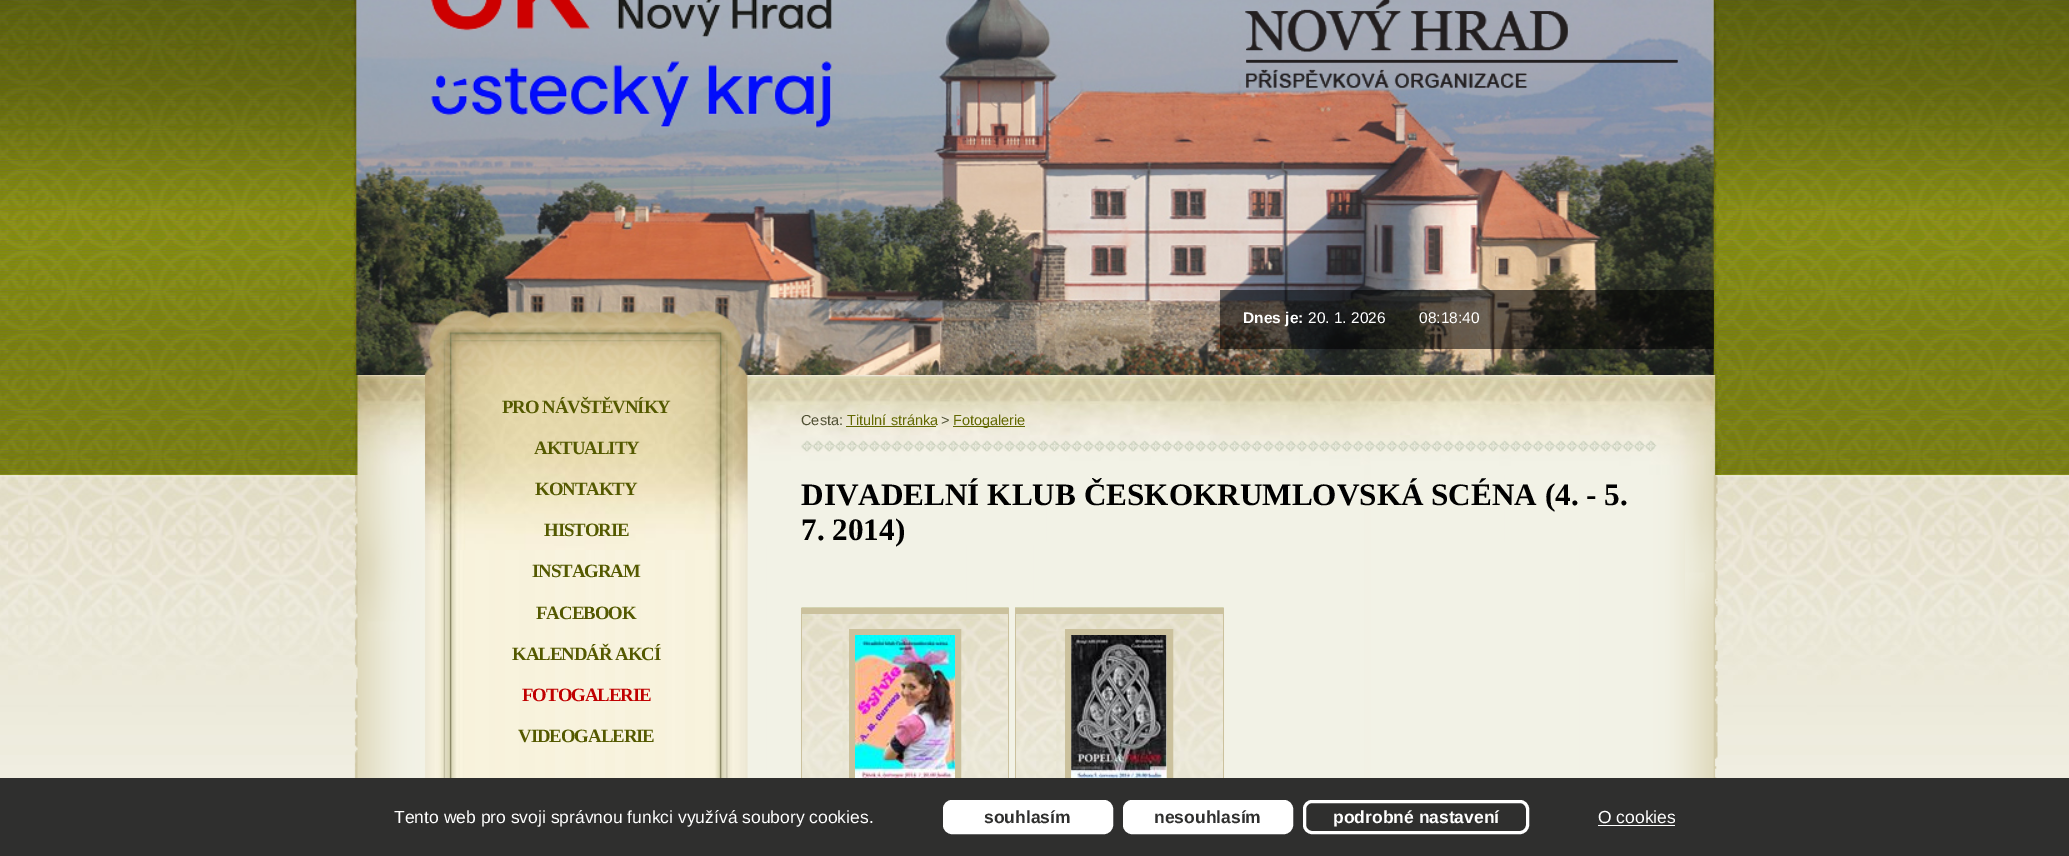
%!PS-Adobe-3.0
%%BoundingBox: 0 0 2069 856
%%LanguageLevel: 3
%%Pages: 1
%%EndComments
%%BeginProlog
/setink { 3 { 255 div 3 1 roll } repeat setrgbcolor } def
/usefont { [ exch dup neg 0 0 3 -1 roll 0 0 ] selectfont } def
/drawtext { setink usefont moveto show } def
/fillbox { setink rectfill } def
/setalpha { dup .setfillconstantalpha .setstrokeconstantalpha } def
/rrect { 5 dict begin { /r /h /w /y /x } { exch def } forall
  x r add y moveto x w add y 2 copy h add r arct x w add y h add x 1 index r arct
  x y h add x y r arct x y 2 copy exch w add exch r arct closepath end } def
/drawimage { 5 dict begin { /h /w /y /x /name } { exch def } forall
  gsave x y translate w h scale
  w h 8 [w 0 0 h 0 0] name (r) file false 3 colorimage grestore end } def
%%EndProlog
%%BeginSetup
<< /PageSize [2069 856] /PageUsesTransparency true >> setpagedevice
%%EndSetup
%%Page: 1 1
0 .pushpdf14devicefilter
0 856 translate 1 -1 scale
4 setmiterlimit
0 0 2069 856 255 255 255 fillbox
(assets/img1.rgb) 0 375 2069 403 drawimage
(assets/img2.rgb) 0 0 2069 375 drawimage
(assets/img3.rgb) 351 0 1368 375 drawimage
(assets/img4.rgb) 1245 0 433 88 drawimage
(assets/img5.rgb) 431 0 401 37 drawimage
(assets/img6.rgb) 431 61 401 67 drawimage
(assets/img7.rgb) 1245 0 433 88 drawimage
0.55 setalpha
1220 290 494 59 0 0 0 fillbox
1 setalpha
(Dnes je:) 1243 323 /LiberationSans-Bold 15.5 255 255 255 drawtext
(20. 1. 2026) 1308 323 /LiberationSans-Regular 15.5 255 255 255 drawtext
(08:18:40) 1419 323 /LiberationSans-Regular 15.5 255 255 255 drawtext
(assets/img8.rgb) 354 475 1364 303 drawimage
(assets/img9.rgb) 350 375 1372 100 drawimage
(assets/img10.rgb) 425 375 323 403 drawimage
(assets/img11.rgb) 425 375 323 175 drawimage
/LiberationSerif-Bold 18.75 usefont
84 89 0 setink
502 413 moveto -1 0 (PRO NÁVŠTĚVNÍKY) ashow
534 454 moveto -1 0 (AKTUALITY) ashow
535 495 moveto -1 0 (KONTAKTY) ashow
544 536 moveto -1 0 (HISTORIE) ashow
532 577 moveto -1 0 (INSTAGRAM) ashow
536 619 moveto -1 0 (FACEBOOK) ashow
512 660 moveto -1 0 (KALENDÁŘ AKCÍ) ashow
192 0 0 setink
522 701 moveto -1 0 (FOTOGALERIE) ashow
84 89 0 setink
518 742 moveto -1 0 (VIDEOGALERIE) ashow
(assets/img12.rgb) 801 440 856 12 drawimage
(Cesta:) 801 425 /LiberationSans-Regular 14.5 78 79 51 drawtext
(Titulní stránka) 847 425 /LiberationSans-Regular 14.5 98 104 1 drawtext
846 426 90 1 98 104 1 fillbox
(>) 941 425 /LiberationSans-Regular 14.5 78 79 51 drawtext
953 426 72 1 98 104 1 fillbox
(Fotogalerie) 953 425 /LiberationSans-Regular 14.5 98 104 1 drawtext
(DIVADELNÍ KLUB ČESKOKRUMLOVSKÁ SCÉNA \(4. - 5.) 801 505 /LiberationSerif-Bold 31.2 0 0 0 drawtext
(7. 2014\)) 801 540 /LiberationSerif-Bold 31.2 0 0 0 drawtext
(assets/img13.rgb) 801 607 208 171 drawimage
801 608 208 6 203 193 157 fillbox
1008 608 1 170 203 193 157 fillbox
801 608 1 170 203 193 157 fillbox
6 setlinewidth
852 632 106 156 rectstroke
(assets/img14.rgb) 855 635 100 143 drawimage
(assets/img15.rgb) 1015 607 209 171 drawimage
1015 608 209 6 203 193 157 fillbox
1223 608 1 170 203 193 157 fillbox
1015 608 1 170 203 193 157 fillbox
1068 632 102 156 rectstroke
(assets/img16.rgb) 1071 635 96 143 drawimage
0 778 2069 78 47 47 46 fillbox
(Tento web pro svoji správnou funkci využívá soubory cookies.) 394 823 /LiberationSans-Regular 17.5 255 255 255 drawtext
944.5 801.5 167 31 7.5 rrect gsave fill grestore
3 setlinewidth
stroke
(souhlasím) 984 823 /LiberationSans-Bold 17.5 47 47 46 drawtext
255 255 255 setink
1124.5 801.5 167 31 7.5 rrect gsave fill grestore
stroke
(nesouhlasím) 1154 823 /LiberationSans-Bold 17.5 47 47 46 drawtext
255 255 255 setink
1304.5 801.5 223 31 7.5 rrect stroke
(podrobné nastavení) 1333 823 /LiberationSans-Bold 17.5 255 255 255 drawtext
(O cookies) 1598 823 /LiberationSans-Regular 17.5 255 255 255 drawtext
1598 825 77 1 255 255 255 fillbox
.poppdf14devicefilter showpage
%%EOF
